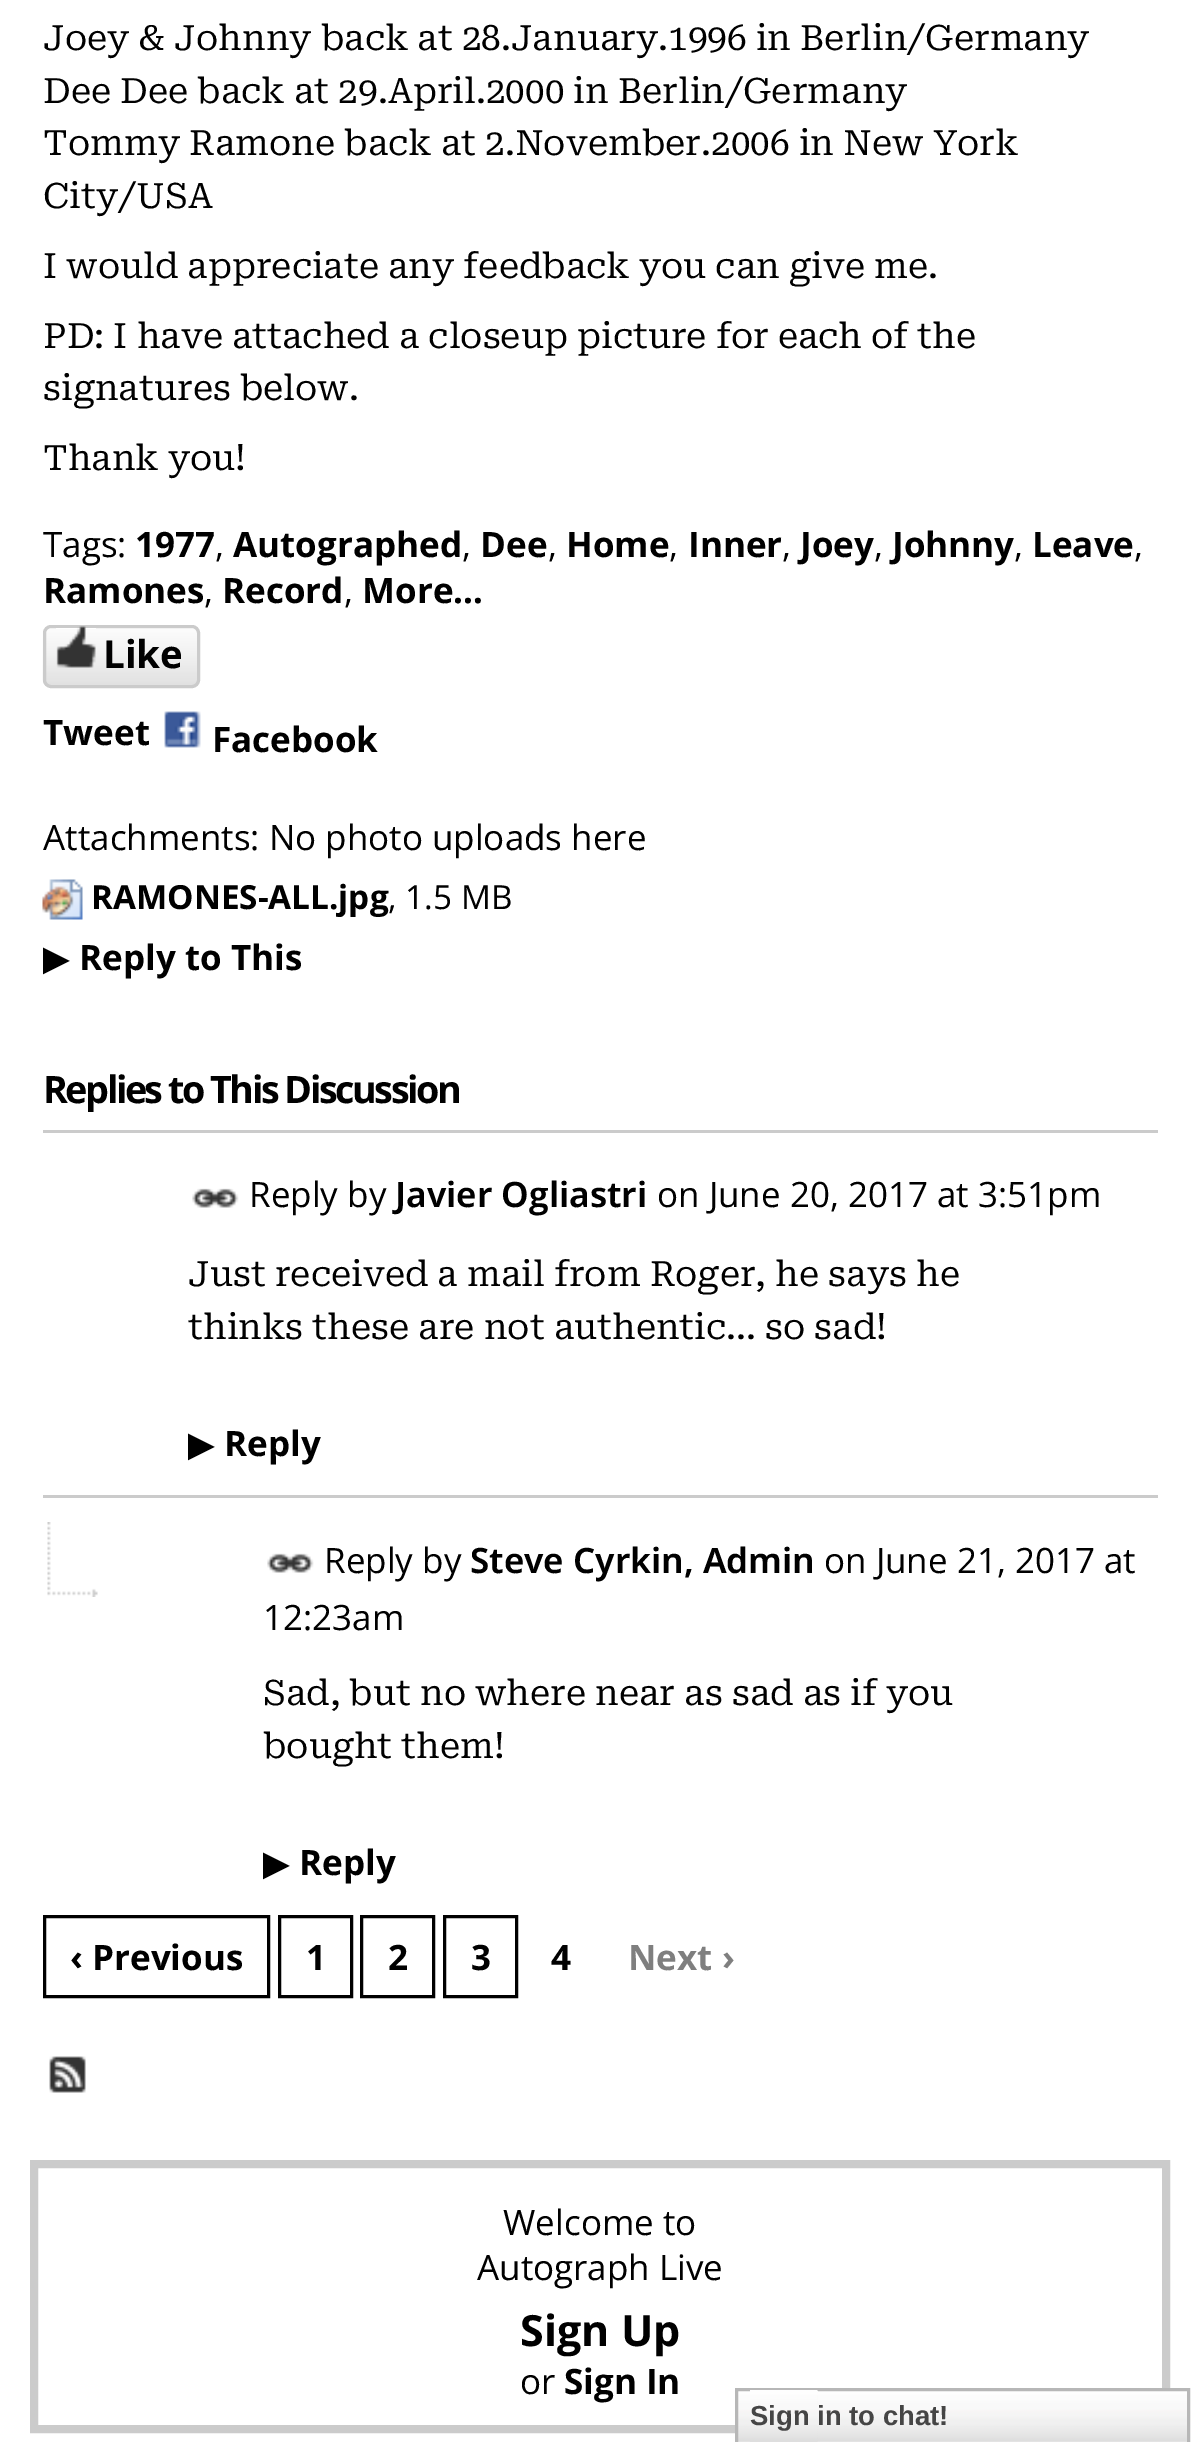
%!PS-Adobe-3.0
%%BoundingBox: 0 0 1199 2442
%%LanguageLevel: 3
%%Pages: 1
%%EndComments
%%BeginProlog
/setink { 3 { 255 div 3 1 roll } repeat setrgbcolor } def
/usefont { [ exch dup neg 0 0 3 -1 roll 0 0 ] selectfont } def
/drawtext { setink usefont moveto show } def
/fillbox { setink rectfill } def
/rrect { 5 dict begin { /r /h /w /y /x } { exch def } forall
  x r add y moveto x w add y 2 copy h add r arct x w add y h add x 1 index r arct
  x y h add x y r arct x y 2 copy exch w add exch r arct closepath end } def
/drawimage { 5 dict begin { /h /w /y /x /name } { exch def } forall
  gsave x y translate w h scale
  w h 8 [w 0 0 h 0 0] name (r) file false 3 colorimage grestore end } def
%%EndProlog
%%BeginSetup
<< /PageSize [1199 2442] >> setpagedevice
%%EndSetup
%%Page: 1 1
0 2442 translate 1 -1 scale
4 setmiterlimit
0 0 1199 2442 255 255 255 fillbox
(Joey & Johnny back at 28.January.1996 in Berlin/Germany) 43 50 /RobotoSerif-Regular 35 0 0 0 drawtext
(Dee Dee back at 29.April.2000 in Berlin/Germany) 43 103 /RobotoSerif-Regular 35 0 0 0 drawtext
(Tommy Ramone back at 2.November.2006 in New York) 43 155 /RobotoSerif-Regular 35 0 0 0 drawtext
(City/USA) 43 208 /RobotoSerif-Regular 35 0 0 0 drawtext
(I would appreciate any feedback you can give me.) 43 278 /RobotoSerif-Regular 35 0 0 0 drawtext
(PD: I have attached a closeup picture for each of the) 43 348 /RobotoSerif-Regular 35 0 0 0 drawtext
(signatures below.) 43 400 /RobotoSerif-Regular 35 0 0 0 drawtext
(Thank you!) 43 470 /RobotoSerif-Regular 35 0 0 0 drawtext
(Tags:) 43 557 /OpenSans-Regular 35 0 0 0 drawtext
(1977) 135 557 /OpenSans-Bold 35 0 0 0 drawtext
(,) 215 557 /OpenSans-Regular 35 0 0 0 drawtext
(Autographed) 233 557 /OpenSans-Bold 35 0 0 0 drawtext
(,) 462 557 /OpenSans-Regular 35 0 0 0 drawtext
(Dee) 480 557 /OpenSans-Bold 35 0 0 0 drawtext
(,) 548 557 /OpenSans-Regular 35 0 0 0 drawtext
(Home) 566 557 /OpenSans-Bold 35 0 0 0 drawtext
(,) 669 557 /OpenSans-Regular 35 0 0 0 drawtext
(Inner) 688 557 /OpenSans-Bold 35 0 0 0 drawtext
(,) 782 557 /OpenSans-Regular 35 0 0 0 drawtext
(Joey) 800 557 /OpenSans-Bold 35 0 0 0 drawtext
(,) 874 557 /OpenSans-Regular 35 0 0 0 drawtext
(Johnny) 892 557 /OpenSans-Bold 35 0 0 0 drawtext
(,) 1014 557 /OpenSans-Regular 35 0 0 0 drawtext
(Leave) 1032 557 /OpenSans-Bold 35 0 0 0 drawtext
(,) 1134 557 /OpenSans-Regular 35 0 0 0 drawtext
(Ramones) 43 603 /OpenSans-Bold 35 0 0 0 drawtext
(,) 204 603 /OpenSans-Regular 35 0 0 0 drawtext
(Record) 222 603 /OpenSans-Bold 35 0 0 0 drawtext
(,) 344 603 /OpenSans-Regular 35 0 0 0 drawtext
(More…) 362 603 /OpenSans-Bold 35 0 0 0 drawtext
(assets/img1.rgb) 42 629 158 58 drawimage
203 203 203 setink
3 setlinewidth
44.5 626.5 154 60 6.5 rrect stroke
(assets/img2.rgb) 56 626 40 42 drawimage
(Like) 103 668 /OpenSans-Bold 38.5 0 0 0 drawtext
(Tweet) 43 745 /OpenSans-Bold 35 0 0 0 drawtext
(assets/img3.rgb) 164 711 37 37 drawimage
(Facebook) 212 752 /OpenSans-Bold 35 0 0 0 drawtext
(Attachments: No photo uploads here) 43 850 /OpenSans-Regular 35 0 0 0 drawtext
(assets/img4.rgb) 42 879 41 41 drawimage
(RAMONES-ALL.jpg) 91 909 /OpenSans-Bold 33.25 0 0 0 drawtext
(, 1.5 MB) 388 909 /OpenSans-Regular 33.25 0 0 0 drawtext
(▶) 43 970 /DejaVuSans-Regular 35 0 0 0 drawtext
(Reply to This) 79 970 /OpenSans-Bold 35 0 0 0 drawtext
/OpenSans-Bold 37.75 usefont
43 1103 moveto -2.5 0 (Replies to This Discussion) ashow
43 1130 1115 3 203 203 203 fillbox
(assets/img5.rgb) 192 1188 47 20 drawimage
(Reply by) 249 1207 /OpenSans-Regular 35 0 0 0 drawtext
(Javier Ogliastri) 395 1207 /OpenSans-SemiBold 35 0 0 0 drawtext
(on June 20, 2017 at 3:51pm) 657 1207 /OpenSans-Regular 35 0 0 0 drawtext
(Just received a mail from Roger, he says he) 188 1286 /RobotoSerif-Regular 35 0 0 0 drawtext
(thinks these are not authentic... so sad!) 188 1339 /RobotoSerif-Regular 35 0 0 0 drawtext
(▶) 188 1456 /DejaVuSans-Regular 35 0 0 0 drawtext
(Reply) 224 1456 /OpenSans-Bold 35 0 0 0 drawtext
(assets/img6.rgb) 47 1522 51 75 drawimage
43 1495 1115 3 203 203 203 fillbox
(assets/img7.rgb) 267 1553 47 20 drawimage
(Reply by) 324 1573 /OpenSans-Regular 35 0 0 0 drawtext
(Steve Cyrkin, Admin) 470 1573 /OpenSans-SemiBold 35 0 0 0 drawtext
(on June 21, 2017 at) 824 1573 /OpenSans-Regular 35 0 0 0 drawtext
(12:23am) 263 1630 /OpenSans-Regular 35 0 0 0 drawtext
(Sad, but no where near as sad as if you) 263 1705 /RobotoSerif-Regular 35 0 0 0 drawtext
(bought them!) 263 1758 /RobotoSerif-Regular 35 0 0 0 drawtext
(▶) 263 1875 /DejaVuSans-Regular 35 0 0 0 drawtext
(Reply) 299 1875 /OpenSans-Bold 35 0 0 0 drawtext
44.5 1916.5 224 80 rectstroke
(‹ Previous) 70 1970 /OpenSans-Bold 35 0 0 0 drawtext
279.5 1916.5 72 80 rectstroke
(1) 306 1970 /OpenSans-Bold 35 0 0 0 drawtext
361.5 1916.5 72 80 rectstroke
(2) 388 1970 /OpenSans-Bold 35 0 0 0 drawtext
444.5 1916.5 72 80 rectstroke
(3) 471 1970 /OpenSans-Bold 35 0 0 0 drawtext
(4) 551 1970 /OpenSans-Bold 35 0 0 0 drawtext
(Next ›) 628 1970 /OpenSans-Bold 35 127 127 127 drawtext
(assets/img8.rgb) 49 2056 37 37 drawimage
203 203 203 setink
8 setlinewidth
34 2164 1132 265 rectstroke
(Welcome to) 503 2235 /OpenSans-Regular 35 0 0 0 drawtext
(Autograph Live) 477 2280 /OpenSans-Regular 35 0 0 0 drawtext
(Sign Up) 520 2346 /OpenSans-Bold 43 0 0 0 drawtext
(or) 520 2394 /OpenSans-Regular 35 0 0 0 drawtext
(Sign In) 564 2394 /OpenSans-Bold 35 0 0 0 drawtext
(assets/img9.rgb) 738 2391 449 51 drawimage
183 183 183 setink
3 setlinewidth
736.5 2389.5 452 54 rectstroke
(assets/img10.rgb) 750 2390 68 52 drawimage
(Sign in to chat!) 750 2425 /LiberationSans-Bold 27.5 69 69 69 drawtext
showpage
%%EOF
